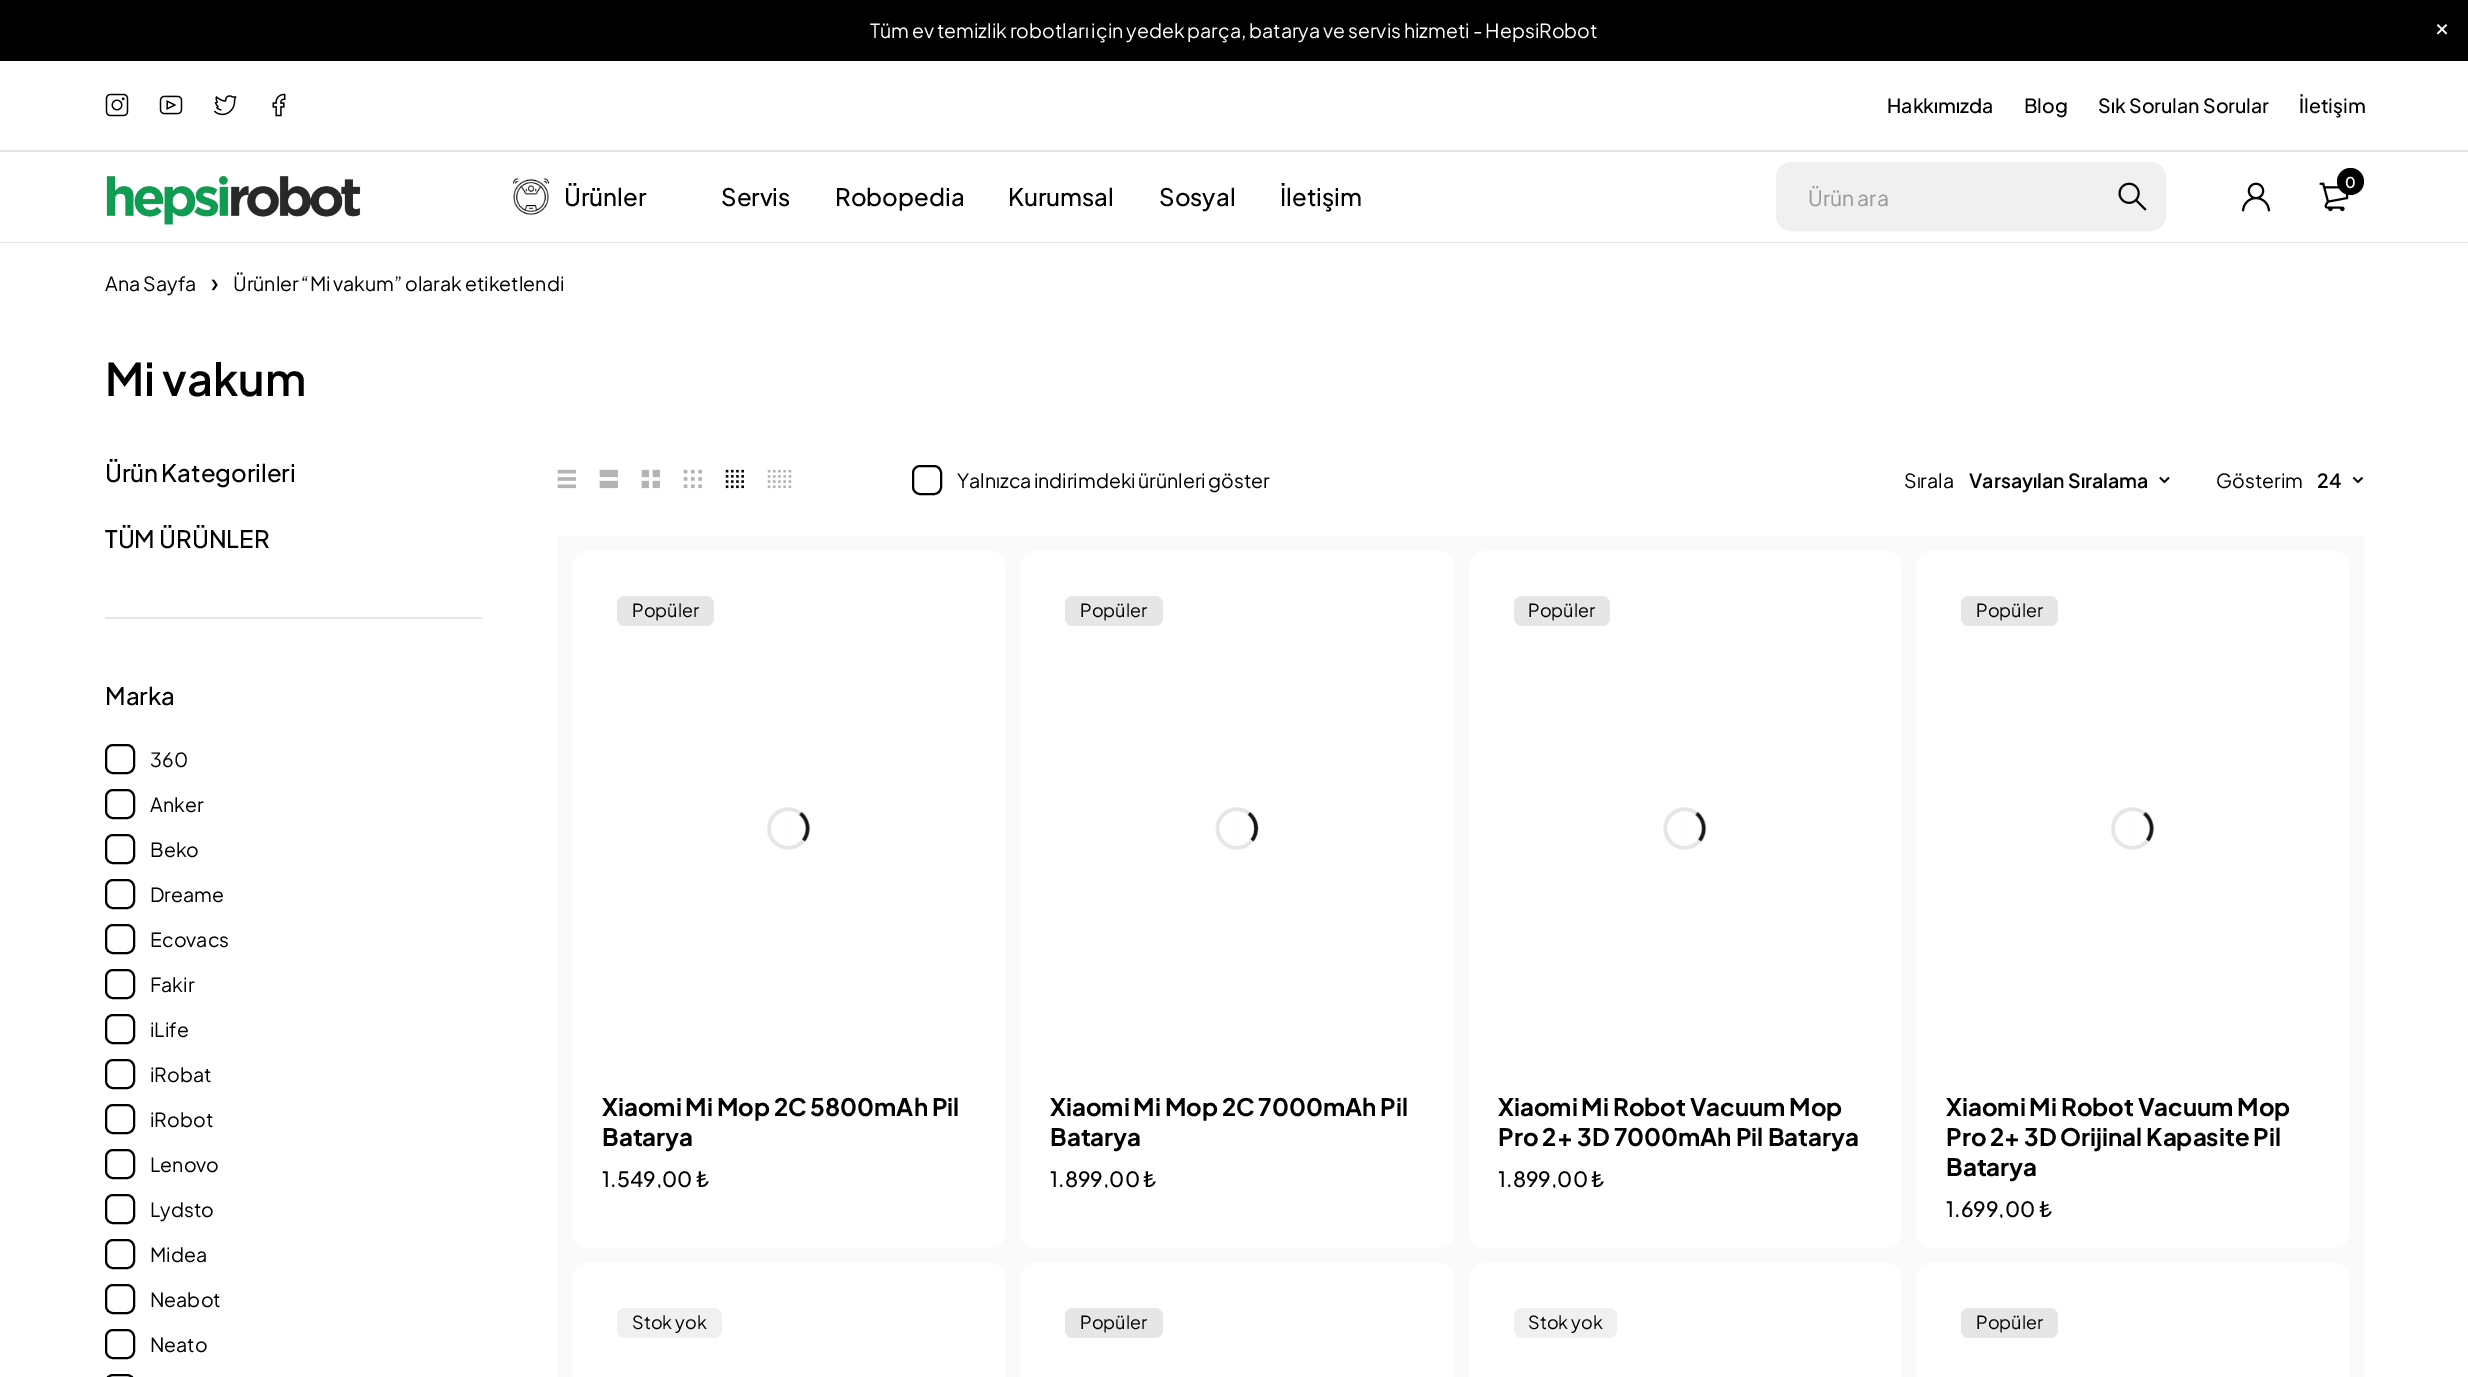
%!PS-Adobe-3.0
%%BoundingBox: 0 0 2468 1377
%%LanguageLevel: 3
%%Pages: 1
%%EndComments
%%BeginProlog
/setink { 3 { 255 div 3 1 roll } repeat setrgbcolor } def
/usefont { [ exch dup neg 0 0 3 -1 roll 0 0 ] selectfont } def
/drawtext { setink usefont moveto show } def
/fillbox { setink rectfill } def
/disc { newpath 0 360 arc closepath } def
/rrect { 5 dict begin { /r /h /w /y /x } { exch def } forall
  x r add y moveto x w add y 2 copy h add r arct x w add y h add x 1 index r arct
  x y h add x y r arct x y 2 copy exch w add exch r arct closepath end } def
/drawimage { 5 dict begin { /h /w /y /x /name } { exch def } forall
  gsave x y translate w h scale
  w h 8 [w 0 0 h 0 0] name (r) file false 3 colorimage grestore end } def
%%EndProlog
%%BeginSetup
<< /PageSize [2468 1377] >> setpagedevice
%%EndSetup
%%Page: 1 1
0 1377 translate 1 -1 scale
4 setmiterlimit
0 0 2468 1377 255 255 255 fillbox
0 0 2468 61 0 0 0 fillbox
/PlusJakartaSans-Regular 19.5 usefont
255 255 255 setink
870 38 moveto -0.4 0 32 (Tüm ev temizlik robotları için yedek parça, batarya ve servis hizmeti - HepsiRobot) widthshow
(assets/img1.rgb) 2436 24 12 11 drawimage
0 150 2468 2 229 229 229 fillbox
(assets/img2.rgb) 105 93 24 24 drawimage
(assets/img3.rgb) 159 95 24 20 drawimage
(assets/img4.rgb) 214 95 23 21 drawimage
(assets/img5.rgb) 272 93 14 24 drawimage
(Hakkımızda) 1887 113 /PlusJakartaSans-Medium 19.5 0 0 0 drawtext
(Blog) 2024 113 /PlusJakartaSans-Medium 19.5 0 0 0 drawtext
(Sık Sorulan Sorular) 2098 113 /PlusJakartaSans-Medium 19.5 0 0 0 drawtext
(İletişim) 2299 113 /PlusJakartaSans-Medium 19.5 0 0 0 drawtext
(assets/img6.rgb) 106 176 255 49 drawimage
(assets/img7.rgb) 513 178 36 37 drawimage
(Ürünler) 564 206 /PlusJakartaSans-Medium 24 0 0 0 drawtext
(Servis) 721 206 /PlusJakartaSans-Medium 24 0 0 0 drawtext
(Robopedia) 835 206 /PlusJakartaSans-Medium 24 0 0 0 drawtext
(Kurumsal) 1008 206 /PlusJakartaSans-Medium 24 0 0 0 drawtext
(Sosyal) 1159 206 /PlusJakartaSans-Medium 24 0 0 0 drawtext
(İletişim) 1280 206 /PlusJakartaSans-Medium 24 0 0 0 drawtext
240 240 240 setink
1777 163 388 67 14 rrect gsave fill grestore
2 setlinewidth
stroke
(Ürün ara) 1808 206 /PlusJakartaSans-Regular 21 153 153 153 drawtext
(assets/img8.rgb) 2118 182 29 29 drawimage
(assets/img9.rgb) 2241 182 30 30 drawimage
(assets/img10.rgb) 2319 182 30 30 drawimage
0 0 0 setink
2350.5 181.5 13.5 disc fill
(0) 2345 188 /PlusJakartaSans-SemiBold 15 255 255 255 drawtext
0 242 2468 1 229 229 229 fillbox
(Ana Sayfa) 105 291 /PlusJakartaSans-Regular 19.5 0 0 0 drawtext
(assets/img11.rgb) 211 279 7 12 drawimage
233 291 moveto -0.5 0 32 (Ürünler “Mi vakum” olarak etiketlendi) widthshow
/PlusJakartaSans-SemiBold 45 usefont
105 396 moveto -1 0 32 (Mi vakum) widthshow
/PlusJakartaSans-Medium 24 usefont
105 482 moveto -1 0 32 (Ürün Kategorileri) widthshow
(TÜM ÜRÜNLER) 105 548 /PlusJakartaSans-Medium 24 0 0 0 drawtext
105 617 377 2 229 229 229 fillbox
(Marka) 105 705 /PlusJakartaSans-Medium 24 0 0 0 drawtext
106 745 28 28 7 rrect stroke
(360) 150 767 /PlusJakartaSans-Regular 19.5 0 0 0 drawtext
106 790 28 28 7 rrect stroke
(Anker) 150 812 /PlusJakartaSans-Regular 19.5 0 0 0 drawtext
106 835 28 28 7 rrect stroke
(Beko) 150 857 /PlusJakartaSans-Regular 19.5 0 0 0 drawtext
106 880 28 28 7 rrect stroke
(Dreame) 150 902 /PlusJakartaSans-Regular 19.5 0 0 0 drawtext
106 925 28 28 7 rrect stroke
(Ecovacs) 150 947 /PlusJakartaSans-Regular 19.5 0 0 0 drawtext
106 970 28 28 7 rrect stroke
(Fakir) 150 992 /PlusJakartaSans-Regular 19.5 0 0 0 drawtext
106 1015 28 28 7 rrect stroke
(iLife) 150 1037 /PlusJakartaSans-Regular 19.5 0 0 0 drawtext
106 1060 28 28 7 rrect stroke
(iRobat) 150 1082 /PlusJakartaSans-Regular 19.5 0 0 0 drawtext
106 1105 28 28 7 rrect stroke
(iRobot) 150 1127 /PlusJakartaSans-Regular 19.5 0 0 0 drawtext
106 1150 28 28 7 rrect stroke
(Lenovo) 150 1172 /PlusJakartaSans-Regular 19.5 0 0 0 drawtext
106 1195 28 28 7 rrect stroke
(Lydsto) 150 1217 /PlusJakartaSans-Regular 19.5 0 0 0 drawtext
106 1240 28 28 7 rrect stroke
(Midea) 150 1262 /PlusJakartaSans-Regular 19.5 0 0 0 drawtext
106 1285 28 28 7 rrect stroke
(Neabot) 150 1307 /PlusJakartaSans-Regular 19.5 0 0 0 drawtext
106 1330 28 28 7 rrect stroke
(Neato) 150 1352 /PlusJakartaSans-Regular 19.5 0 0 0 drawtext
106 1375 28 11 7 rrect stroke
(assets/img12.rgb) 557 469 19 20 drawimage
(assets/img13.rgb) 599 469 19 20 drawimage
(assets/img14.rgb) 641 469 19 20 drawimage
(assets/img15.rgb) 683 469 19 20 drawimage
(assets/img16.rgb) 725 469 19 20 drawimage
(assets/img17.rgb) 767 469 25 20 drawimage
913 466 28 28 7 rrect stroke
957 488 moveto -1 0 32 (Yalnızca indirimdeki ürünleri göster) widthshow
(Sırala) 1904 488 /PlusJakartaSans-Regular 19.5 0 0 0 drawtext
(Varsayılan Sıralama) 1969 488 /PlusJakartaSans-SemiBold 19.5 0 0 0 drawtext
(assets/img18.rgb) 2159 476 11 8 drawimage
(Gösterim) 2216 488 /PlusJakartaSans-Regular 19.5 0 0 0 drawtext
(24) 2317 488 /PlusJakartaSans-SemiBold 19.5 0 0 0 drawtext
(assets/img19.rgb) 2352 476 12 8 drawimage
557 536 1807 841 250 250 250 fillbox
255 255 255 setink
572 551 433 697 15 rrect fill
230 230 230 setink
617 596 97 30 8 rrect fill
(Popüler) 632 617 /PlusJakartaSans-Regular 18 0 0 0 drawtext
(assets/img20.rgb) 767 807 44 43 drawimage
/PlusJakartaSans-Bold 24 usefont
602 1116 moveto -0.5 0 32 (Xiaomi Mi Mop 2C 5800mAh Pil) widthshow
(Batarya) 602 1146 /PlusJakartaSans-Bold 24 0 0 0 drawtext
gsave
602 1077 373 111 rectclip
(1.549,00) 602 1187 /PlusJakartaSans-Medium 21 0 0 0 drawtext
grestore
(₺) 696 1187 /PlusJakartaSans-Medium 21 0 0 0 drawtext
255 255 255 setink
1020 551 434 697 15 rrect fill
230 230 230 setink
1065 596 98 30 8 rrect fill
(Popüler) 1080 617 /PlusJakartaSans-Regular 18 0 0 0 drawtext
(assets/img21.rgb) 1215 807 44 43 drawimage
/PlusJakartaSans-Bold 24 usefont
1050 1116 moveto -0.5 0 32 (Xiaomi Mi Mop 2C 7000mAh Pil) widthshow
(Batarya) 1050 1146 /PlusJakartaSans-Bold 24 0 0 0 drawtext
gsave
1050 1077 374 111 rectclip
(1.899,00) 1050 1187 /PlusJakartaSans-Medium 21 0 0 0 drawtext
grestore
(₺) 1143 1187 /PlusJakartaSans-Medium 21 0 0 0 drawtext
255 255 255 setink
1469 551 432 697 15 rrect fill
230 230 230 setink
1514 596 96 30 8 rrect fill
(Popüler) 1528 617 /PlusJakartaSans-Regular 18 0 0 0 drawtext
(assets/img22.rgb) 1663 807 44 43 drawimage
/PlusJakartaSans-Bold 24 usefont
1498 1116 moveto -0.5 0 32 (Xiaomi Mi Robot Vacuum Mop) widthshow
(Pro 2+ 3D 7000mAh Pil Batarya) 1498 1146 /PlusJakartaSans-Bold 24 0 0 0 drawtext
gsave
1499 1077 372 111 rectclip
(1.899,00) 1498 1187 /PlusJakartaSans-Medium 21 0 0 0 drawtext
grestore
(₺) 1591 1187 /PlusJakartaSans-Medium 21 0 0 0 drawtext
255 255 255 setink
1916 551 433 697 15 rrect fill
230 230 230 setink
1961 596 97 30 8 rrect fill
(Popüler) 1976 617 /PlusJakartaSans-Regular 18 0 0 0 drawtext
(assets/img20.rgb) 2111 807 44 43 drawimage
/PlusJakartaSans-Bold 24 usefont
1946 1116 moveto -0.5 0 32 (Xiaomi Mi Robot Vacuum Mop) widthshow
1946 1146 moveto -0.5 0 32 (Pro 2+ 3D Orijinal Kapasite Pil) widthshow
(Batarya) 1946 1176 /PlusJakartaSans-Bold 24 0 0 0 drawtext
gsave
1946 1077 373 141 rectclip
(1.699,00) 1946 1217 /PlusJakartaSans-Medium 21 0 0 0 drawtext
grestore
(₺) 2039 1217 /PlusJakartaSans-Medium 21 0 0 0 drawtext
255 255 255 setink
572 1263 433 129 15 rrect fill
240 240 240 setink
617 1308 105 30 8 rrect fill
(Stok yok) 632 1329 /PlusJakartaSans-Regular 18 0 0 0 drawtext
255 255 255 setink
1020 1263 434 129 15 rrect fill
230 230 230 setink
1065 1308 98 30 8 rrect fill
(Popüler) 1080 1329 /PlusJakartaSans-Regular 18 0 0 0 drawtext
255 255 255 setink
1469 1263 432 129 15 rrect fill
240 240 240 setink
1514 1308 103 30 8 rrect fill
(Stok yok) 1528 1329 /PlusJakartaSans-Regular 18 0 0 0 drawtext
255 255 255 setink
1916 1263 433 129 15 rrect fill
230 230 230 setink
1961 1308 97 30 8 rrect fill
(Popüler) 1976 1329 /PlusJakartaSans-Regular 18 0 0 0 drawtext
showpage
%%EOF
